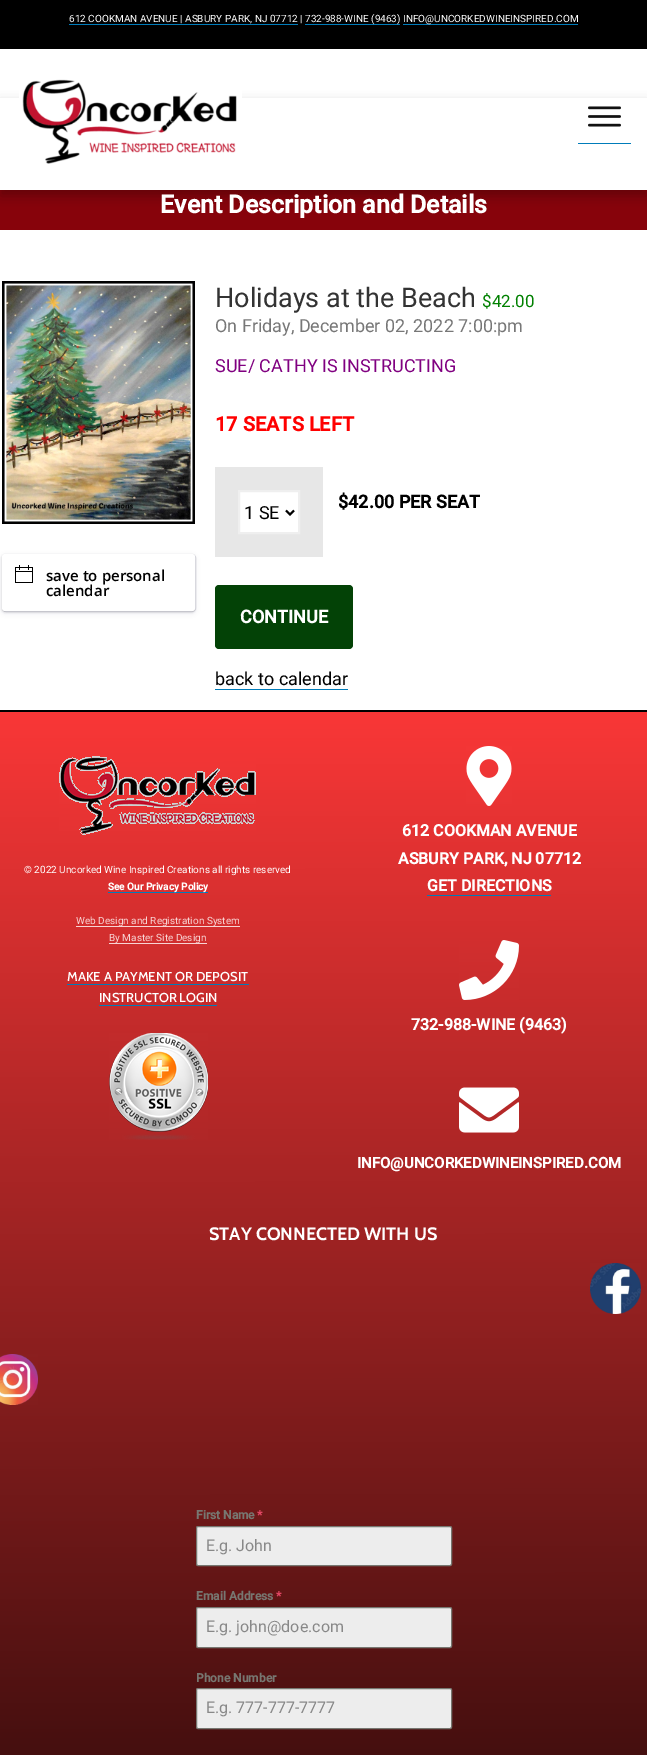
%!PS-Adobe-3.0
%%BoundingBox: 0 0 647 1755
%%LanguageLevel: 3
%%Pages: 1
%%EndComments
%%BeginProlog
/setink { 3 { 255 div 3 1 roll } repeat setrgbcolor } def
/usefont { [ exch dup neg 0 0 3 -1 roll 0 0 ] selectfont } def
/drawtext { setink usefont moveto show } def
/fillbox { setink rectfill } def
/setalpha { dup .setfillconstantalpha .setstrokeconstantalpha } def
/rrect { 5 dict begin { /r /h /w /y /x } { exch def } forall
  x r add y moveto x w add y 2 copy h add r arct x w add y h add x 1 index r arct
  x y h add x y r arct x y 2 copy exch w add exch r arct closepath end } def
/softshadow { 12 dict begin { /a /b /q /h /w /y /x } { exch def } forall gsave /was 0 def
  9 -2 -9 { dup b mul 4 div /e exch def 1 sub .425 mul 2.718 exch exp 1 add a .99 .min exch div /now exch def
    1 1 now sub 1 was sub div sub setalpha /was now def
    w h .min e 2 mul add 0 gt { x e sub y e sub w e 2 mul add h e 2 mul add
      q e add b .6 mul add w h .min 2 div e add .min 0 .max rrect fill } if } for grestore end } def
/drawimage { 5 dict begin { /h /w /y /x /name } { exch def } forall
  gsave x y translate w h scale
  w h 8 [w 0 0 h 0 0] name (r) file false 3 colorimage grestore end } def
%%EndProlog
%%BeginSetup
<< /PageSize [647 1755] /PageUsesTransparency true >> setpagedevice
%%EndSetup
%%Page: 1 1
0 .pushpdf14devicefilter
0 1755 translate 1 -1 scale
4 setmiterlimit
0 0 647 1755 255 255 255 fillbox
0 0 647 49 0 0 0 fillbox
(612 COOKMAN AVENUE | ASBURY PARK, NJ 07712 |) 69 22 /Roboto-Regular 10 255 255 255 drawtext
69 24 229 1 0 124 186 fillbox
305 24 95 1 0 124 186 fillbox
(732-988-WINE \(9463\)) 305 22 /Roboto-Regular 10 255 255 255 drawtext
403 24 175 1 0 124 186 fillbox
(INFO@UNCORKEDWINEINSPIRED.COM) 403 22 /Roboto-Regular 10 255 255 255 drawtext
0 190 647 40 135 3 11 fillbox
0 0 0 setink
0 104 647 92 0 6 0.27 softshadow
0 98 647 92 255 255 255 fillbox
(assets/img1.rgb) 19 79 223 85 drawimage
578 143 53 1 0 124 186 fillbox
(assets/img2.rgb) 588 106 33 21 drawimage
(Event Description and Details) 160 213 /Roboto-Bold 25 255 255 255 drawtext
(assets/img3.rgb) 2 281 193 243 drawimage
0 0 0 setink
2 555 193 57 3 1 0.08 softshadow
2 555 193 57 3 1 0.07 softshadow
50 50 93 setink
2 556 193 57 3 2.5 0.1 softshadow
0.17 setalpha
0.5 setlinewidth
2.25 554.25 193.5 57.5 3.75 rrect stroke
1 setalpha
255 255 255 setink
2 554 193 57 3 rrect fill
(assets/img4.rgb) 15 565 18 18 drawimage
(save to personal) 46 581 /OpenSans-SemiBold 15 0 0 0 drawtext
(calendar) 46 596 /OpenSans-SemiBold 15 0 0 0 drawtext
(Holidays at the Beach) 215 307 /Roboto-Regular 27 51 51 51 drawtext
($42.00) 482 307 /Roboto-Regular 17 0 128 0 drawtext
(On Friday, December 02, 2022 7:00:pm) 215 332 /Roboto-Regular 18 119 119 119 drawtext
(SUE/ CATHY IS INSTRUCTING) 215 372 /Roboto-Regular 18 128 0 128 drawtext
(17 SEATS LEFT) 215 431 /Roboto-Bold 20 255 0 0 drawtext
($42.00 PER SEAT) 338 508 /Roboto-Bold 18 0 0 0 drawtext
215 467 108 90 231 231 231 fillbox
255 255 255 setink
239 491 moveto 299 491 lineto 299 533 lineto 239 533 lineto closepath gsave fill grestore
239 239 239 setink
2 setlinewidth
stroke
0 0 0 setink
286 510.5 moveto 290 514.5 lineto 294 510.5 lineto stroke
(1 SE) 244 519 /Roboto-Regular 18 0 0 0 drawtext
3 66 6 setink
215 585 138 64 4 rrect fill
(CONTINUE) 240 623 /Roboto-Bold 18 255 255 255 drawtext
(back to calendar) 215 685 /Roboto-Regular 18 0 0 0 drawtext
215 689 133 1 0 124 186 fillbox
0 710 647 2 0 0 0 fillbox
gsave 0 712 moveto 647 712 lineto 647 1755 lineto 0 1755 lineto closepath clip newpath
<< /ShadingType 2 /ColorSpace /DeviceRGB /Coords [323 712 324 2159] /Extend [true true] /Function << /FunctionType 2 /Domain [0 1] /C0 [0.976 0.216 0.216] /C1 [0 0 0] /N 1 >> >> shfill grestore
(assets/img5.rgb) 59 756 197 79 drawimage
(© 2022 Uncorked Wine Inspired Creations all rights reserved) 24 873 /Roboto-Regular 10 255 255 255 drawtext
108 892 100 1 0 124 186 fillbox
(See Our Privacy Policy) 108 890 /Roboto-Bold 10 255 255 255 drawtext
76 926 164 1 248 212 212 fillbox
(Web Design and Registration System) 76 924 /Roboto-Regular 10 248 212 212 drawtext
109 943 98 1 248 212 212 fillbox
(By Master Site Design) 109 941 /Roboto-Regular 10 248 212 212 drawtext
(MAKE A PAYMENT OR DEPOSIT) 67 981 /Cabin-Medium 13 255 255 255 drawtext
67 984 182 1 0 124 186 fillbox
(INSTRUCTOR LOGIN) 99 1002 /Cabin-Medium 13 255 255 255 drawtext
99 1005 118 1 0 124 186 fillbox
(assets/img6.rgb) 109 1033 99 107 drawimage
(assets/img7.rgb) 466 746 46 60 drawimage
(612 COOKMAN AVENUE) 402 836 /Roboto-Bold 16 255 255 255 drawtext
(ASBURY PARK, NJ 07712) 398 864 /Roboto-Bold 16 255 255 255 drawtext
(GET DIRECTIONS) 427 891 /Roboto-Bold 16 255 255 255 drawtext
427 895 124 1 0 124 186 fillbox
(assets/img8.rgb) 459 940 60 60 drawimage
(732-988-WINE \(9463\)) 411 1030 /Roboto-Bold 16 255 255 255 drawtext
(assets/img9.rgb) 459 1087 60 46 drawimage
(INFO@UNCORKEDWINEINSPIRED.COM) 357 1168 /Roboto-Bold 15 255 255 255 drawtext
(STAY CONNECTED WITH US) 209 1240 /Cabin-Bold 18 255 255 255 drawtext
(assets/img10.rgb) 590 1263 51 51 drawimage
(assets/img11.rgb) 0 1354 38 51 drawimage
(First Name) 196 1519 /Roboto-Bold 12 119 119 113 drawtext
(*) 257 1519 /Roboto-Bold 12 224 69 98 drawtext
237 237 237 setink
196.5 1526.5 255 39 1.5 rrect gsave fill grestore
119 119 113 setink
1 setlinewidth
stroke
(E.g. John) 206 1551 /Roboto-Regular 16 136 136 136 drawtext
(Email Address) 196 1600 /Roboto-Bold 12 119 119 113 drawtext
(*) 276 1600 /Roboto-Bold 12 224 69 98 drawtext
237 237 237 setink
196.5 1607.5 255 40 1.5 rrect gsave fill grestore
119 119 113 setink
stroke
(E.g. john@doe.com) 206 1632 /Roboto-Regular 16 136 136 136 drawtext
(Phone Number) 196 1682 /Roboto-Bold 12 119 119 113 drawtext
237 237 237 setink
196.5 1688.5 255 40 1.5 rrect gsave fill grestore
119 119 113 setink
stroke
(E.g. 777-777-7777) 206 1713 /Roboto-Regular 16 136 136 136 drawtext
.poppdf14devicefilter showpage
%%EOF
